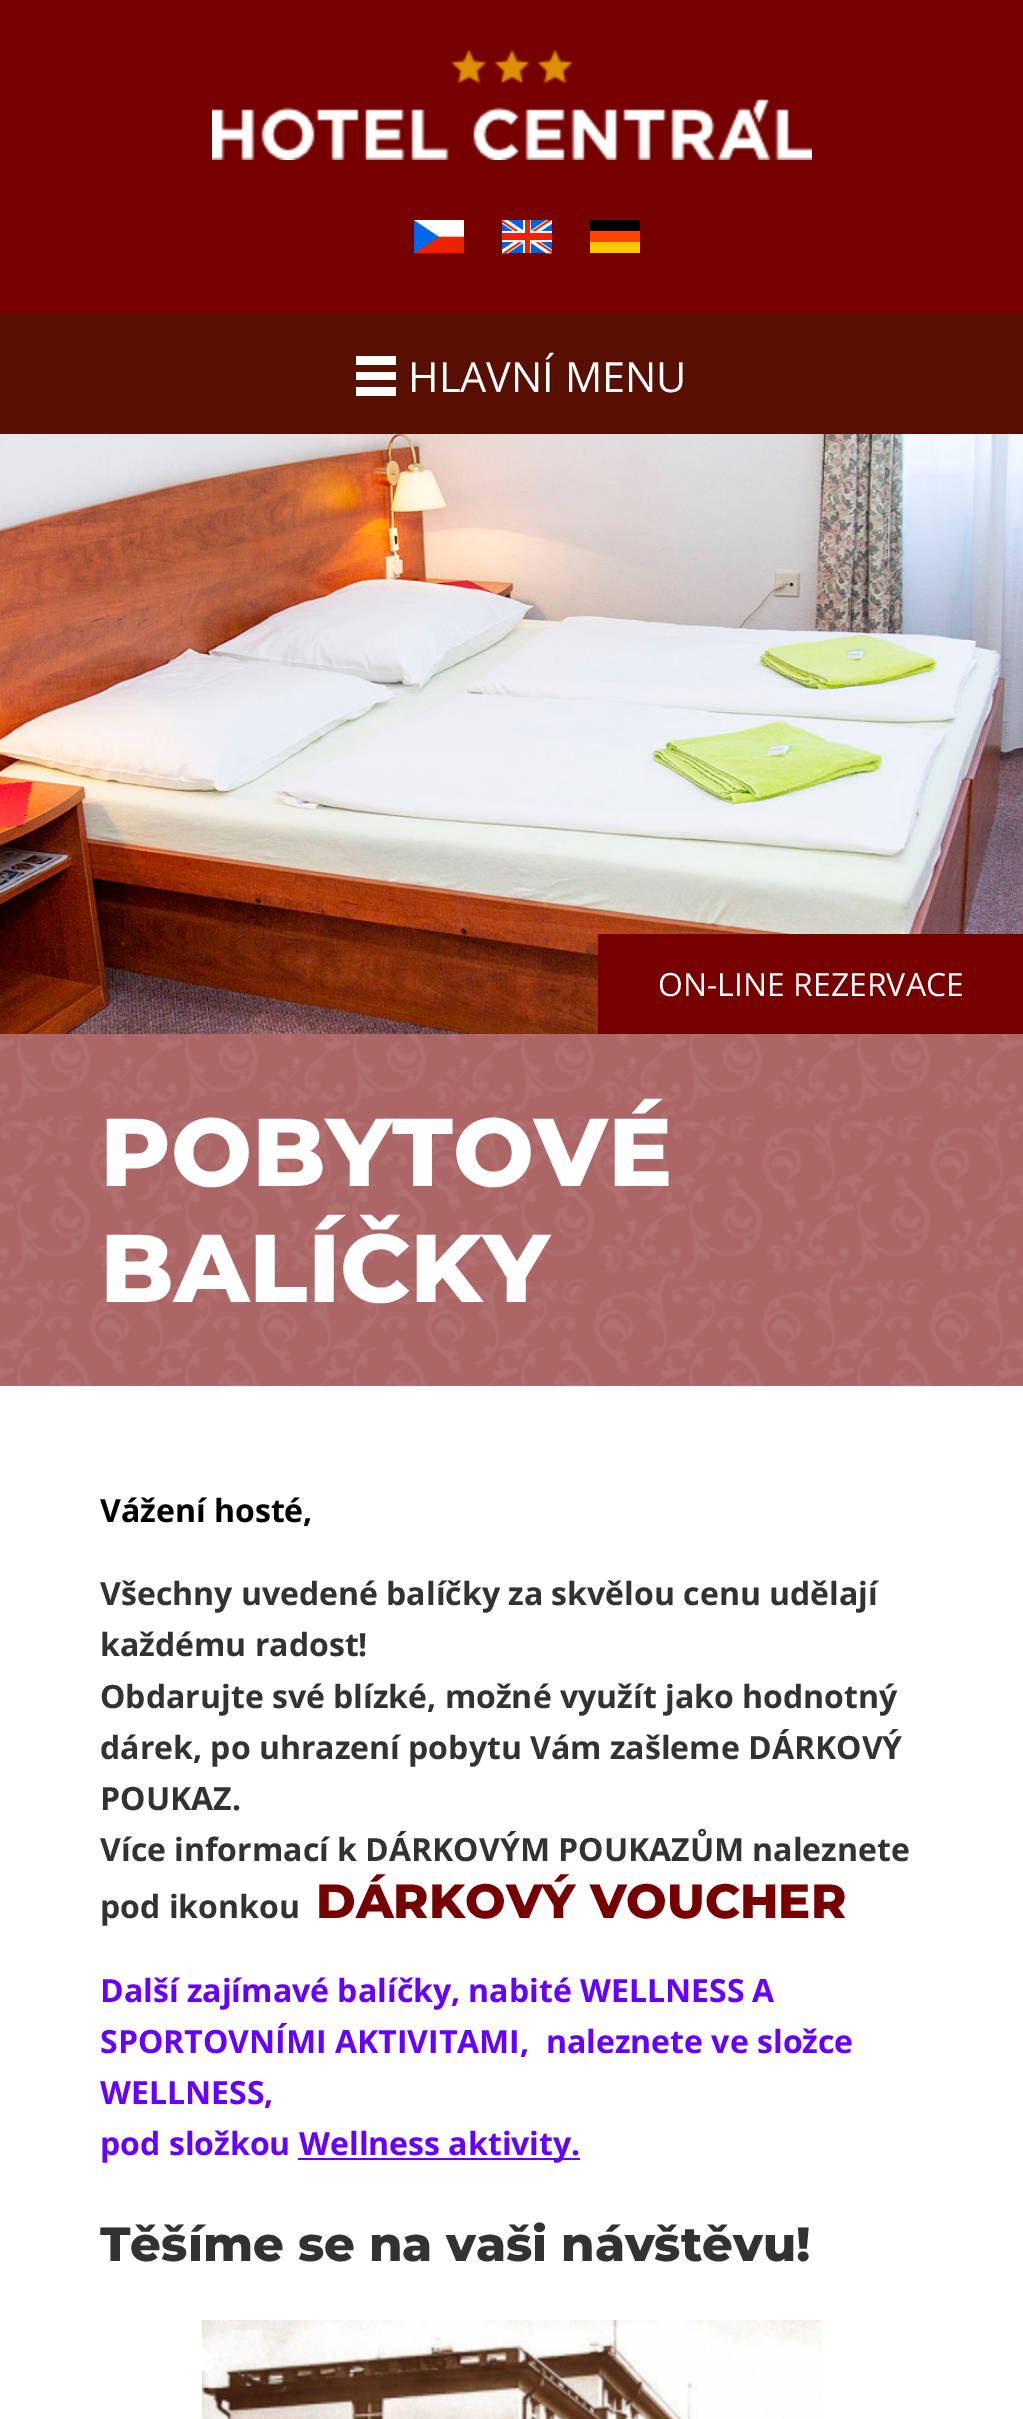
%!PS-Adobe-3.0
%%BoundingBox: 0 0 1023 2419
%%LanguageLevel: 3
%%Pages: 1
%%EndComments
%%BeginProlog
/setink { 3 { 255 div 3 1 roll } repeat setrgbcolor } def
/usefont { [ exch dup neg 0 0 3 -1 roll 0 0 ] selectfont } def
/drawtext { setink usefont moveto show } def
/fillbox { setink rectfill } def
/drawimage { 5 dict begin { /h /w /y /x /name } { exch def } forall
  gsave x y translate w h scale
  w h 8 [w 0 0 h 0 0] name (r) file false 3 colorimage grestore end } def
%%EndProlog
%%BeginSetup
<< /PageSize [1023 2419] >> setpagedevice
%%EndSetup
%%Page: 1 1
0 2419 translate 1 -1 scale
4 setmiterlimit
0 0 1023 2419 255 255 255 fillbox
0 0 1023 314 118 0 0 fillbox
(assets/img1.rgb) 212 50 600 110 drawimage
(assets/img2.rgb) 414 220 50 34 drawimage
(assets/img3.rgb) 502 220 50 34 drawimage
590 220 50 11 0 0 0 fillbox
590 231 50 11 255 68 0 fillbox
590 242 50 11 255 201 0 fillbox
0 314 1023 120 87 15 2 fillbox
356 356 40 9 255 255 255 fillbox
(HLAVNÍ MENU) 408 392 /OpenSans-Regular 41.5 255 255 255 drawtext
356 372 40 8 255 255 255 fillbox
356 387 40 9 255 255 255 fillbox
(assets/img4.rgb) 0 434 1023 600 drawimage
598 934 425 100 118 0 0 fillbox
(ON-LINE REZERVACE) 658 996 /OpenSans-Regular 32 255 255 255 drawtext
(assets/img5.rgb) 0 1034 1023 352 drawimage
(POBYTOVÉ) 100 1186 /Montserrat-Thin 96 255 255 255 drawtext
(BALÍČKY) 100 1302 /Montserrat-Thin 96 255 255 255 drawtext
(Vážení hosté,) 100 1522 /OpenSans-Bold 32 0 0 0 drawtext
(Všechny uvedené balíčky za skvělou cenu udělají) 100 1605 /OpenSans-Bold 32 50 50 50 drawtext
(každému radost!) 100 1656 /OpenSans-Bold 32 50 50 50 drawtext
(Obdarujte své blízké, možné využít jako hodnotný) 100 1708 /OpenSans-Bold 32 50 50 50 drawtext
(dárek, po uhrazení pobytu Vám zašleme DÁRKOVÝ) 100 1759 /OpenSans-Bold 32 50 50 50 drawtext
(POUKAZ.) 100 1810 /OpenSans-Bold 32 50 50 50 drawtext
(Více informací k DÁRKOVÝM POUKAZŮM naleznete) 100 1861 /OpenSans-Bold 32 50 50 50 drawtext
(pod ikonkou) 100 1918 /OpenSans-Bold 32 50 50 50 drawtext
(DÁRKOVÝ VOUCHER) 316 1918 /Montserrat-Thin 48 118 0 0 drawtext
(Další zajímavé balíčky, nabité WELLNESS A) 100 2002 /OpenSans-Bold 32 102 0 255 drawtext
(SPORTOVNÍMI AKTIVITAMI,  naleznete ve složce) 100 2053 /OpenSans-Bold 32 102 0 255 drawtext
(WELLNESS,) 100 2104 /OpenSans-Bold 32 102 0 255 drawtext
(pod složkou) 100 2155 /OpenSans-Bold 32 102 0 255 drawtext
298 2158 282 2 102 0 255 fillbox
(Wellness aktivity.) 299 2155 /OpenSans-Bold 32 102 0 255 drawtext
(Těšíme se na vaši návštěvu!) 100 2261 /Montserrat-Thin 48 50 50 50 drawtext
(assets/img6.rgb) 202 2320 620 99 drawimage
showpage
%%EOF
